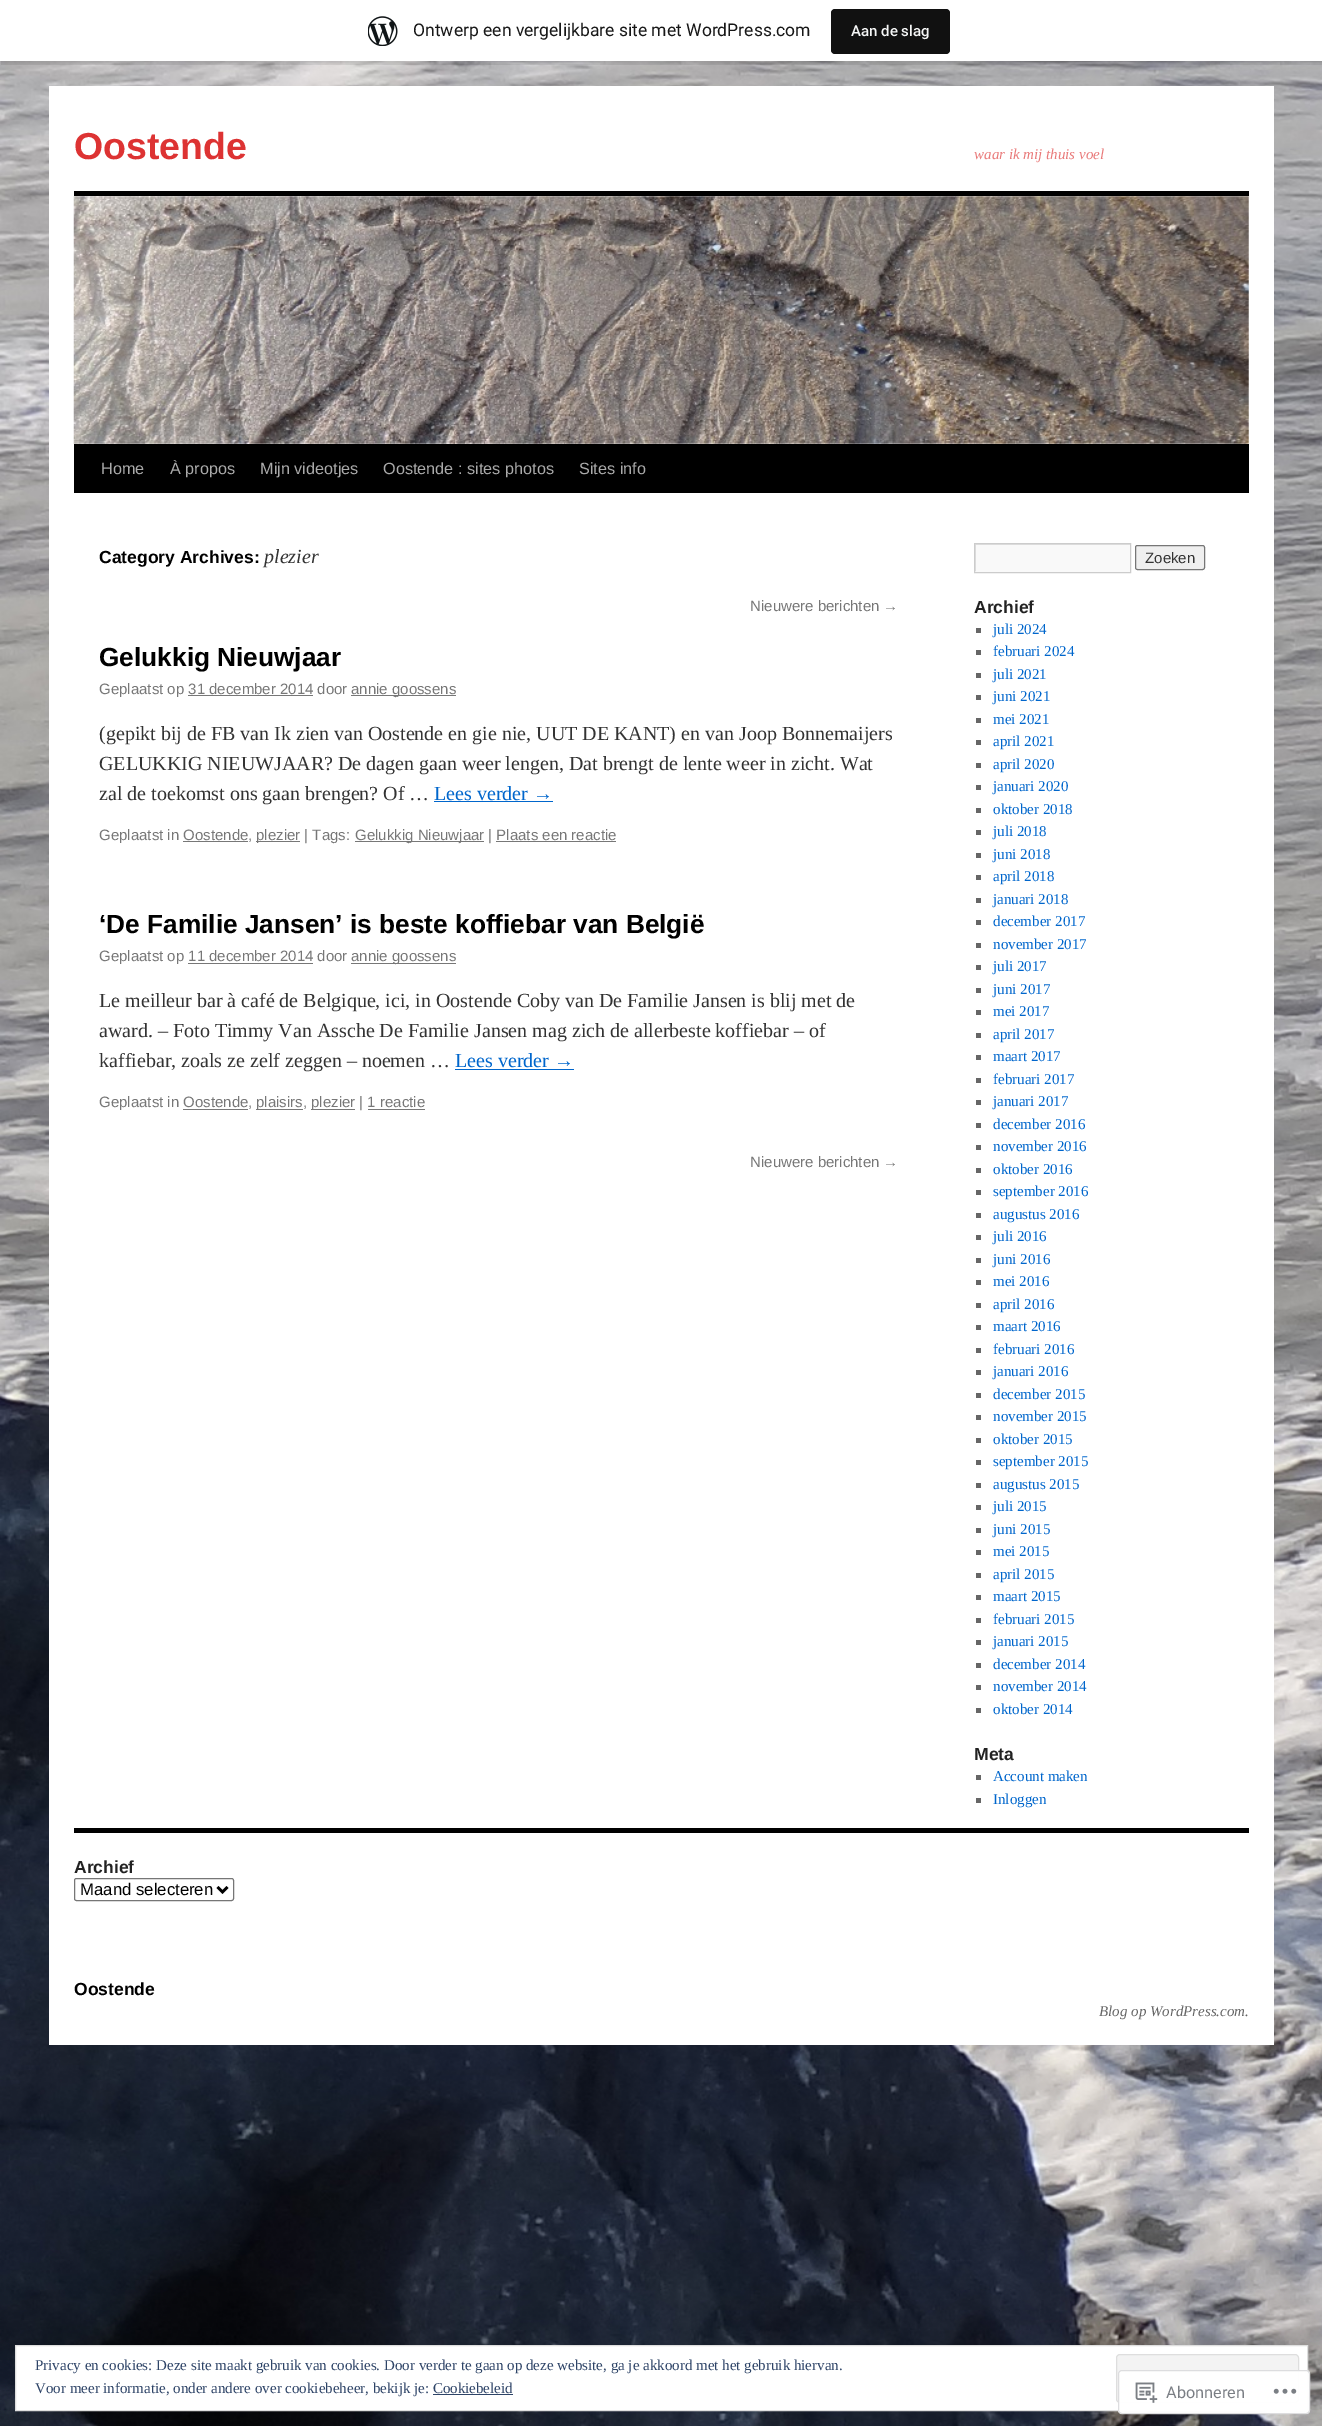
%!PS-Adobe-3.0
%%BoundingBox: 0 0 1322 2426
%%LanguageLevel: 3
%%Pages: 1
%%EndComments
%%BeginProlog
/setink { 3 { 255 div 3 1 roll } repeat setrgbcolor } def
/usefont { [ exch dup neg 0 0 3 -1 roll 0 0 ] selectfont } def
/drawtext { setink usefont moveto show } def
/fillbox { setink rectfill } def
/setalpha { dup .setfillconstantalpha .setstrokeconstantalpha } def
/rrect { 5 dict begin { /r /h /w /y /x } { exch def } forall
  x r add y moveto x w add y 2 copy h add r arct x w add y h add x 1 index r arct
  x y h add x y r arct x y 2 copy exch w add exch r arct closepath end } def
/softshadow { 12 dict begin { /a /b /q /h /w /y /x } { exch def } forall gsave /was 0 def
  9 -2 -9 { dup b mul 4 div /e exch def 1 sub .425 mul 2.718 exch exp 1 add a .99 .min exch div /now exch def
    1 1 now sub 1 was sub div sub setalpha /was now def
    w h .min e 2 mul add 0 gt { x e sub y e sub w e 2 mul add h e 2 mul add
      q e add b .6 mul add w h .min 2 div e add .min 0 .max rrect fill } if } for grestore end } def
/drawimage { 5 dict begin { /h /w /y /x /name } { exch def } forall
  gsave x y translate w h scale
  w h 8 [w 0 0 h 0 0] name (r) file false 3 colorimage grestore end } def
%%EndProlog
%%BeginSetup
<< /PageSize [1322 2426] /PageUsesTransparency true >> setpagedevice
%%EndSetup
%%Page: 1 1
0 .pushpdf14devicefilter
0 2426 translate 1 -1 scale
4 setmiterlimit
0 0 1322 2426 255 255 255 fillbox
(assets/img1.rgb) 0 61 1322 2365 drawimage
0 0 0 setink
0 1 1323 62 0 1 0.05 softshadow
0.08 setalpha
1 61 moveto 1 65 lineto 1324 65 lineto 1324 4 lineto 1322 4 lineto 1322 61 lineto closepath fill
1 setalpha
0 0 1322 61 255 255 255 fillbox
(assets/img2.rgb) 368 16 30 30 drawimage
(Ontwerp een vergelijkbare site met WordPress.com) 413 36 /Roboto-Regular 17.5 23 23 23 drawtext
17 17 17 setink
831 9 119 45 4 rrect fill
(Aan de slag) 851 36 /Roboto-Medium 15 246 247 247 drawtext
49 86 1225 1959 255 255 255 fillbox
(Oostende) 74 159 /LiberationSans-Bold 37.5 221 51 51 drawtext
(waar ik mij thuis voel) 974 159 /LiberationSerif-Italic 15 233 122 122 drawtext
74 191 1175 5 0 0 0 fillbox
74 444 1175 49 0 0 0 fillbox
(assets/img3.rgb) 73 196 1176 248 drawimage
(Home) 101 474 /LiberationSans-Regular 16.25 170 170 170 drawtext
(À propos) 170 474 /LiberationSans-Regular 16.25 170 170 170 drawtext
(Mijn videotjes) 260 474 /LiberationSans-Regular 16.25 170 170 170 drawtext
(Oostende : sites photos) 383 474 /LiberationSans-Regular 16.25 170 170 170 drawtext
(Sites info) 579 474 /LiberationSans-Regular 16.25 170 170 170 drawtext
(Category Archives:) 99 563 /LiberationSans-Bold 17.5 0 0 0 drawtext
(plezier) 264 563 /LiberationSerif-Italic 20 51 51 51 drawtext
(Nieuwere berichten →) 750 611 /LiberationSans-Regular 15 119 119 119 drawtext
(Gelukkig Nieuwjaar) 99 666 /LiberationSans-Bold 26.25 0 0 0 drawtext
(Geplaatst op 31 december 2014 door) 99 694 /LiberationSans-Regular 15 119 119 119 drawtext
351 695 105 1 119 119 119 fillbox
(annie goossens) 351 694 /LiberationSans-Regular 15 119 119 119 drawtext
188 695 125 1 119 119 119 fillbox
(\(gepikt bij de FB van Ik zien van Oostende en gie nie, UUT DE KANT\) en van Joop Bonnemaijers) 99 740 /LiberationSerif-Regular 20 51 51 51 drawtext
(GELUKKIG NIEUWJAAR? De dagen gaan weer lengen, Dat brengt de lente weer in zicht. Wat) 99 770 /LiberationSerif-Regular 20 51 51 51 drawtext
(zal de toekomst ons gaan brengen? Of …) 99 800 /LiberationSerif-Regular 20 51 51 51 drawtext
(Lees verder →) 434 800 /LiberationSerif-Regular 20 0 102 204 drawtext
434 801 119 1 0 102 204 fillbox
(Geplaatst in Oostende,) 99 840 /LiberationSans-Regular 15 119 119 119 drawtext
183 841 65 1 119 119 119 fillbox
256 841 44 1 119 119 119 fillbox
(plezier | Tags:) 256 840 /LiberationSans-Regular 15 119 119 119 drawtext
355 841 129 1 119 119 119 fillbox
(Gelukkig Nieuwjaar | Plaats een reactie) 355 840 /LiberationSans-Regular 15 119 119 119 drawtext
496 841 120 1 119 119 119 fillbox
(‘De Familie Jansen’ is beste koffiebar van België) 99 933 /LiberationSans-Bold 26.25 0 0 0 drawtext
(Geplaatst op 11 december 2014 door) 99 961 /LiberationSans-Regular 15 119 119 119 drawtext
351 963 105 1 119 119 119 fillbox
(annie goossens) 351 961 /LiberationSans-Regular 15 119 119 119 drawtext
188 963 125 1 119 119 119 fillbox
(Le meilleur bar à café de Belgique, ici, in Oostende Coby van De Familie Jansen is blij met de) 99 1007 /LiberationSerif-Regular 20 51 51 51 drawtext
(award. – Foto Timmy Van Assche De Familie Jansen mag zich de allerbeste koffiebar – of) 99 1037 /LiberationSerif-Regular 20 51 51 51 drawtext
(kaffiebar, zoals ze zelf zeggen – noemen …) 99 1067 /LiberationSerif-Regular 20 51 51 51 drawtext
(Lees verder →) 455 1067 /LiberationSerif-Regular 20 0 102 204 drawtext
455 1069 119 1 0 102 204 fillbox
(Geplaatst in Oostende,) 99 1107 /LiberationSans-Regular 15 119 119 119 drawtext
183 1109 65 1 119 119 119 fillbox
256 1109 47 1 119 119 119 fillbox
(plaisirs,) 256 1107 /LiberationSans-Regular 15 119 119 119 drawtext
311 1109 44 1 119 119 119 fillbox
(plezier | 1 reactie) 311 1107 /LiberationSans-Regular 15 119 119 119 drawtext
368 1109 57 1 119 119 119 fillbox
(Nieuwere berichten →) 750 1167 /LiberationSans-Regular 15 119 119 119 drawtext
975 545 155 27 249 249 249 fillbox
gsave
975 544 155 27 rectclip
224 224 224 setink
851 420 moveto 1254 420 lineto 1254 695 lineto 851 695 lineto closepath 976 545 moveto 1131 545 lineto 1131 572 lineto 976 572 lineto closepath eofill
grestore
204 204 204 setink
974.5 543.5 156 29 rectstroke
239 239 239 setink
1135.5 545.5 69 24 2 rrect gsave fill grestore
118 118 118 setink
stroke
(Zoeken) 1145 563 /LiberationSans-Regular 15 51 51 51 drawtext
(Archief) 974 613 /LiberationSans-Bold 17.5 34 34 34 drawtext
976 628 5 5 102 102 102 fillbox
(juli 2024) 993 634 /LiberationSerif-Regular 15 0 102 204 drawtext
976 650 5 5 102 102 102 fillbox
(februari 2024) 993 656 /LiberationSerif-Regular 15 0 102 204 drawtext
976 673 5 5 102 102 102 fillbox
(juli 2021) 993 679 /LiberationSerif-Regular 15 0 102 204 drawtext
976 695 5 5 102 102 102 fillbox
(juni 2021) 993 701 /LiberationSerif-Regular 15 0 102 204 drawtext
976 718 5 5 102 102 102 fillbox
(mei 2021) 993 724 /LiberationSerif-Regular 15 0 102 204 drawtext
976 740 5 5 102 102 102 fillbox
(april 2021) 993 746 /LiberationSerif-Regular 15 0 102 204 drawtext
976 763 5 5 102 102 102 fillbox
(april 2020) 993 769 /LiberationSerif-Regular 15 0 102 204 drawtext
976 785 5 5 102 102 102 fillbox
(januari 2020) 993 791 /LiberationSerif-Regular 15 0 102 204 drawtext
976 808 5 5 102 102 102 fillbox
(oktober 2018) 993 814 /LiberationSerif-Regular 15 0 102 204 drawtext
976 830 5 5 102 102 102 fillbox
(juli 2018) 993 836 /LiberationSerif-Regular 15 0 102 204 drawtext
976 853 5 5 102 102 102 fillbox
(juni 2018) 993 859 /LiberationSerif-Regular 15 0 102 204 drawtext
976 875 5 5 102 102 102 fillbox
(april 2018) 993 881 /LiberationSerif-Regular 15 0 102 204 drawtext
976 898 5 5 102 102 102 fillbox
(januari 2018) 993 904 /LiberationSerif-Regular 15 0 102 204 drawtext
976 920 5 5 102 102 102 fillbox
(december 2017) 993 926 /LiberationSerif-Regular 15 0 102 204 drawtext
976 943 5 5 102 102 102 fillbox
(november 2017) 993 949 /LiberationSerif-Regular 15 0 102 204 drawtext
976 965 5 5 102 102 102 fillbox
(juli 2017) 993 971 /LiberationSerif-Regular 15 0 102 204 drawtext
976 988 5 5 102 102 102 fillbox
(juni 2017) 993 994 /LiberationSerif-Regular 15 0 102 204 drawtext
976 1010 5 5 102 102 102 fillbox
(mei 2017) 993 1016 /LiberationSerif-Regular 15 0 102 204 drawtext
976 1033 5 5 102 102 102 fillbox
(april 2017) 993 1039 /LiberationSerif-Regular 15 0 102 204 drawtext
976 1055 5 5 102 102 102 fillbox
(maart 2017) 993 1061 /LiberationSerif-Regular 15 0 102 204 drawtext
976 1078 5 5 102 102 102 fillbox
(februari 2017) 993 1084 /LiberationSerif-Regular 15 0 102 204 drawtext
976 1100 5 5 102 102 102 fillbox
(januari 2017) 993 1106 /LiberationSerif-Regular 15 0 102 204 drawtext
976 1123 5 5 102 102 102 fillbox
(december 2016) 993 1129 /LiberationSerif-Regular 15 0 102 204 drawtext
976 1145 5 5 102 102 102 fillbox
(november 2016) 993 1151 /LiberationSerif-Regular 15 0 102 204 drawtext
976 1168 5 5 102 102 102 fillbox
(oktober 2016) 993 1174 /LiberationSerif-Regular 15 0 102 204 drawtext
976 1190 5 5 102 102 102 fillbox
(september 2016) 993 1196 /LiberationSerif-Regular 15 0 102 204 drawtext
976 1213 5 5 102 102 102 fillbox
(augustus 2016) 993 1219 /LiberationSerif-Regular 15 0 102 204 drawtext
976 1235 5 5 102 102 102 fillbox
(juli 2016) 993 1241 /LiberationSerif-Regular 15 0 102 204 drawtext
976 1258 5 5 102 102 102 fillbox
(juni 2016) 993 1264 /LiberationSerif-Regular 15 0 102 204 drawtext
976 1280 5 5 102 102 102 fillbox
(mei 2016) 993 1286 /LiberationSerif-Regular 15 0 102 204 drawtext
976 1303 5 5 102 102 102 fillbox
(april 2016) 993 1309 /LiberationSerif-Regular 15 0 102 204 drawtext
976 1325 5 5 102 102 102 fillbox
(maart 2016) 993 1331 /LiberationSerif-Regular 15 0 102 204 drawtext
976 1348 5 5 102 102 102 fillbox
(februari 2016) 993 1354 /LiberationSerif-Regular 15 0 102 204 drawtext
976 1370 5 5 102 102 102 fillbox
(januari 2016) 993 1376 /LiberationSerif-Regular 15 0 102 204 drawtext
976 1393 5 5 102 102 102 fillbox
(december 2015) 993 1399 /LiberationSerif-Regular 15 0 102 204 drawtext
976 1415 5 5 102 102 102 fillbox
(november 2015) 993 1421 /LiberationSerif-Regular 15 0 102 204 drawtext
976 1438 5 5 102 102 102 fillbox
(oktober 2015) 993 1444 /LiberationSerif-Regular 15 0 102 204 drawtext
976 1460 5 5 102 102 102 fillbox
(september 2015) 993 1466 /LiberationSerif-Regular 15 0 102 204 drawtext
976 1483 5 5 102 102 102 fillbox
(augustus 2015) 993 1489 /LiberationSerif-Regular 15 0 102 204 drawtext
976 1505 5 5 102 102 102 fillbox
(juli 2015) 993 1511 /LiberationSerif-Regular 15 0 102 204 drawtext
976 1528 5 5 102 102 102 fillbox
(juni 2015) 993 1534 /LiberationSerif-Regular 15 0 102 204 drawtext
976 1550 5 5 102 102 102 fillbox
(mei 2015) 993 1556 /LiberationSerif-Regular 15 0 102 204 drawtext
976 1573 5 5 102 102 102 fillbox
(april 2015) 993 1579 /LiberationSerif-Regular 15 0 102 204 drawtext
976 1595 5 5 102 102 102 fillbox
(maart 2015) 993 1601 /LiberationSerif-Regular 15 0 102 204 drawtext
976 1618 5 5 102 102 102 fillbox
(februari 2015) 993 1624 /LiberationSerif-Regular 15 0 102 204 drawtext
976 1640 5 5 102 102 102 fillbox
(januari 2015) 993 1646 /LiberationSerif-Regular 15 0 102 204 drawtext
976 1663 5 5 102 102 102 fillbox
(december 2014) 993 1669 /LiberationSerif-Regular 15 0 102 204 drawtext
976 1685 5 5 102 102 102 fillbox
(november 2014) 993 1691 /LiberationSerif-Regular 15 0 102 204 drawtext
976 1708 5 5 102 102 102 fillbox
(oktober 2014) 993 1714 /LiberationSerif-Regular 15 0 102 204 drawtext
(Meta) 974 1760 /LiberationSans-Bold 17.5 34 34 34 drawtext
976 1775 5 5 102 102 102 fillbox
(Account maken) 993 1781 /LiberationSerif-Regular 15 0 102 204 drawtext
976 1798 5 5 102 102 102 fillbox
(Inloggen) 993 1804 /LiberationSerif-Regular 15 0 102 204 drawtext
74 1828 1175 5 0 0 0 fillbox
(Archief) 74 1873 /LiberationSans-Bold 17.5 34 34 34 drawtext
118 118 118 setink
74.5 1878.5 159 22 2 rrect stroke
0 0 0 setink
2.5 setlinewidth
217.5 1887 moveto 222.5 1892 lineto 227.5 1887 lineto stroke
(Maand selecteren) 80 1895 /LiberationSans-Regular 16.75 0 0 0 drawtext
(Oostende) 74 1995 /LiberationSans-Bold 17.5 0 0 0 drawtext
(Blog op WordPress.com.) 1099 2016 /LiberationSerif-Italic 15 102 102 102 drawtext
255 255 255 setink
15.5 2345.5 moveto 1307.5 2345.5 lineto 1307.5 2410.5 lineto 15.5 2410.5 lineto closepath gsave fill grestore
222 222 222 setink
1 setlinewidth
stroke
(Privacy en cookies: Deze site maakt gebruik van cookies. Door verder te gaan op deze website, ga je akkoord met het gebruik hiervan.) 35 2370 /LiberationSerif-Regular 15 46 68 103 drawtext
243 243 243 setink
1116.5 2354.5 182 48 3.5 rrect gsave fill grestore
222 222 222 setink
stroke
(Voor meer informatie, onder andere over cookiebeheer, bekijk je: Cookiebeleid) 35 2393 /LiberationSerif-Regular 15 46 68 103 drawtext
433 2394 80 1 46 68 103 fillbox
0.98 setalpha
255 255 255 setink
1118 2370 192 44 4 rrect fill
220 220 222 setink
1118.5 2370.5 191 43 3.5 rrect stroke
1 setalpha
(assets/img4.rgb) 1135 2382 23 21 drawimage
(Abonneren) 1166 2398 /Roboto-Regular 16.25 122 126 132 drawtext
(assets/img5.rgb) 1273 2388 24 6 drawimage
.poppdf14devicefilter showpage
%%EOF
